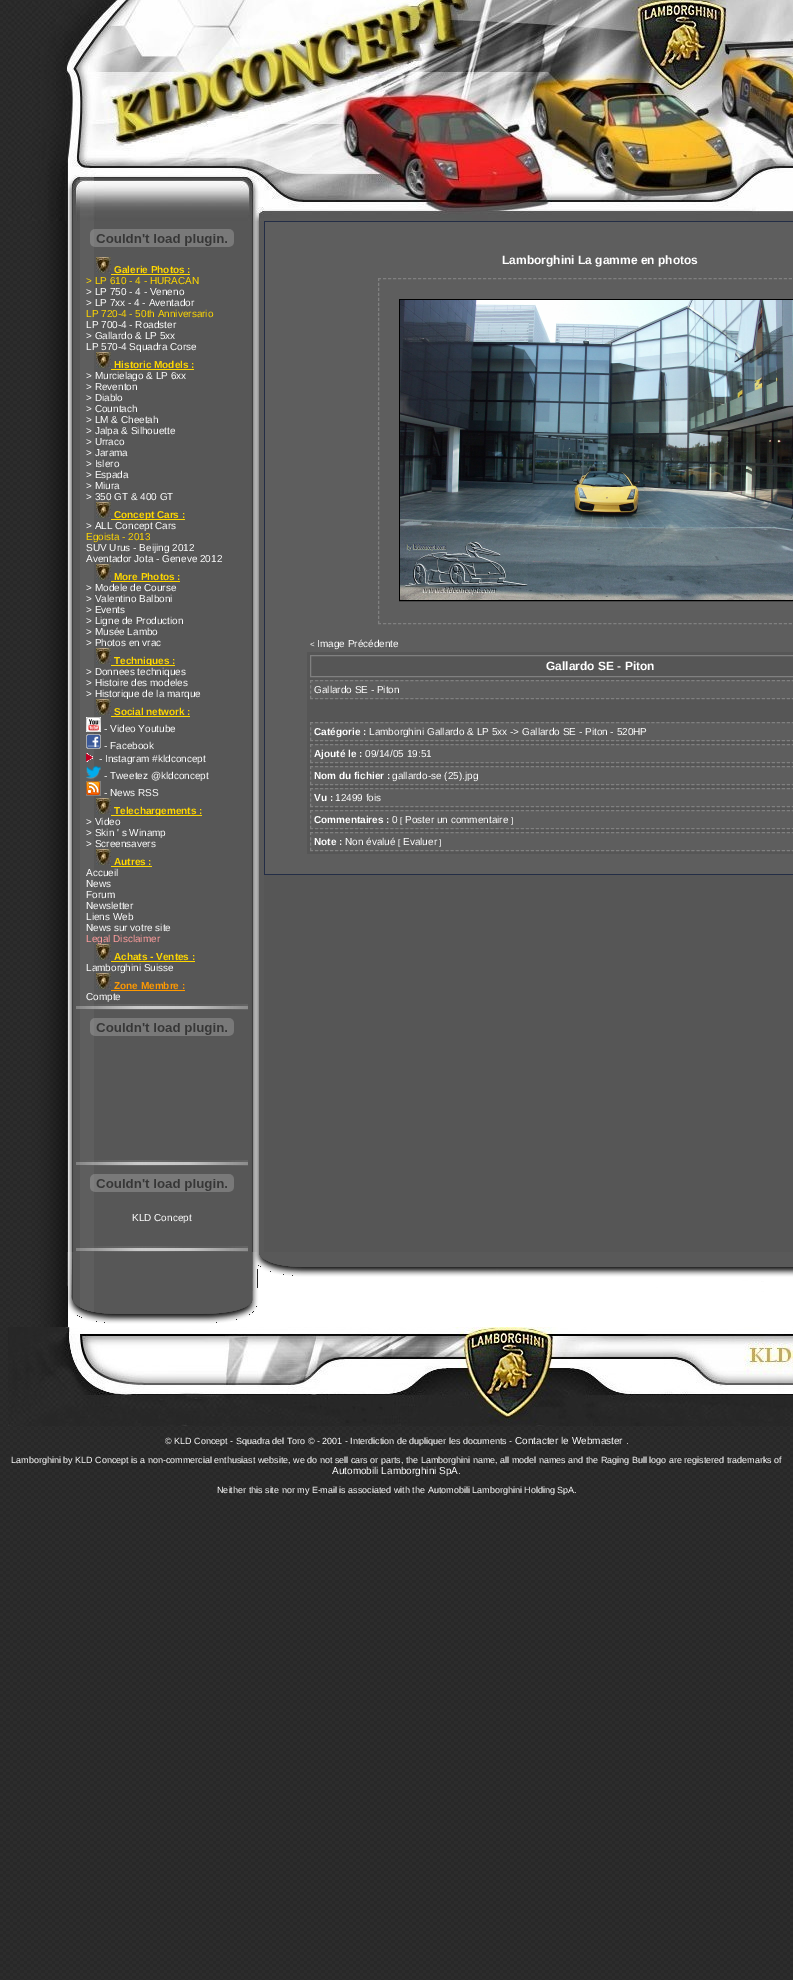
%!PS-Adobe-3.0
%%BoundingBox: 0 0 793 1980
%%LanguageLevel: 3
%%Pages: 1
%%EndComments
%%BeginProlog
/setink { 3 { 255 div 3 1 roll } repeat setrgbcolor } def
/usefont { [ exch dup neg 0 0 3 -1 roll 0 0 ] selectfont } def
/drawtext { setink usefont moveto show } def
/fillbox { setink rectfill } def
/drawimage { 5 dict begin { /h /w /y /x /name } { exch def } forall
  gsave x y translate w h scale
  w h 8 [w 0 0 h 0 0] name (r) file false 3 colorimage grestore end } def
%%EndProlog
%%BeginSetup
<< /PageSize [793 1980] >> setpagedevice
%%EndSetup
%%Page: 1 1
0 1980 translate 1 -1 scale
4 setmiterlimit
0 0 793 1980 255 255 255 fillbox
(assets/img1.rgb) 0 0 793 1980 drawimage
(assets/img2.rgb) 8 0 785 221 drawimage
(assets/img3.rgb) 31 221 43 1031 drawimage
(assets/img4.rgb) 74 221 176 1031 drawimage
(assets/img5.rgb) 90 229 144 18 drawimage
(assets/img6.rgb) 96 257 15 16 drawimage
(Galerie Photos :) 114 273 /LiberationSans-Bold 10 255 215 0 drawtext
111 274 79 1 255 215 0 fillbox
(> LP 610 - 4 - HURACAN) 86 284 /LiberationSans-Regular 10 255 215 0 drawtext
(> LP 750 - 4 - Veneno) 86 295 /LiberationSans-Regular 10 255 255 255 drawtext
(> LP 7xx - 4 - Aventador) 86 306 /LiberationSans-Regular 10 255 255 255 drawtext
(LP 720-4 - 50th Anniversario) 86 317 /LiberationSans-Regular 10 255 215 0 drawtext
(LP 700-4 - Roadster) 86 328 /LiberationSans-Regular 10 255 255 255 drawtext
(> Gallardo & LP 5xx) 86 339 /LiberationSans-Regular 10 255 255 255 drawtext
(LP 570-4 Squadra Corse) 86 350 /LiberationSans-Regular 10 255 255 255 drawtext
(assets/img6.rgb) 96 352 15 16 drawimage
(Historic Models :) 114 368 /LiberationSans-Bold 10 255 215 0 drawtext
111 369 83 1 255 215 0 fillbox
(> Murcielago & LP 6xx) 86 379 /LiberationSans-Regular 10 255 255 255 drawtext
(> Reventon) 86 390 /LiberationSans-Regular 10 255 255 255 drawtext
(> Diablo) 86 401 /LiberationSans-Regular 10 255 255 255 drawtext
(> Countach) 86 412 /LiberationSans-Regular 10 255 255 255 drawtext
(> LM & Cheetah) 86 423 /LiberationSans-Regular 10 255 255 255 drawtext
(> Jalpa & Silhouette) 86 434 /LiberationSans-Regular 10 255 255 255 drawtext
(> Urraco) 86 445 /LiberationSans-Regular 10 255 255 255 drawtext
(> Jarama) 86 456 /LiberationSans-Regular 10 255 255 255 drawtext
(> Islero) 86 467 /LiberationSans-Regular 10 255 255 255 drawtext
(> Espada) 86 478 /LiberationSans-Regular 10 255 255 255 drawtext
(> Miura) 86 489 /LiberationSans-Regular 10 255 255 255 drawtext
(> 350 GT & 400 GT) 86 500 /LiberationSans-Regular 10 255 255 255 drawtext
(assets/img6.rgb) 96 502 15 16 drawimage
111 519 74 1 255 215 0 fillbox
(Concept Cars :) 114 518 /LiberationSans-Bold 10 255 215 0 drawtext
(> ALL Concept Cars) 86 529 /LiberationSans-Regular 10 255 255 255 drawtext
(Egoista - 2013) 86 540 /LiberationSans-Regular 10 255 215 0 drawtext
(SUV Urus - Beijing 2012) 86 551 /LiberationSans-Regular 10 255 255 255 drawtext
(Aventador Jota - Geneve 2012) 86 562 /LiberationSans-Regular 10 255 255 255 drawtext
(assets/img6.rgb) 96 564 15 16 drawimage
(More Photos :) 114 580 /LiberationSans-Bold 10 255 215 0 drawtext
111 581 69 1 255 215 0 fillbox
(> Modele de Course) 86 591 /LiberationSans-Regular 10 255 255 255 drawtext
(> Valentino Balboni) 86 602 /LiberationSans-Regular 10 255 255 255 drawtext
(> Events) 86 613 /LiberationSans-Regular 10 255 255 255 drawtext
(> Ligne de Production) 86 624 /LiberationSans-Regular 10 255 255 255 drawtext
(> Musée Lambo) 86 635 /LiberationSans-Regular 10 255 255 255 drawtext
(> Photos en vrac) 86 646 /LiberationSans-Regular 10 255 255 255 drawtext
(assets/img6.rgb) 96 648 15 16 drawimage
111 665 64 1 255 215 0 fillbox
(Techniques :) 114 664 /LiberationSans-Bold 10 255 215 0 drawtext
(> Donnees techniques) 86 675 /LiberationSans-Regular 10 255 255 255 drawtext
(> Histoire des modeles) 86 686 /LiberationSans-Regular 10 255 255 255 drawtext
(> Historique de la marque) 86 697 /LiberationSans-Regular 10 255 255 255 drawtext
(assets/img6.rgb) 96 699 15 16 drawimage
(Social network :) 114 715 /LiberationSans-Bold 10 255 215 0 drawtext
111 716 79 1 255 215 0 fillbox
(assets/img7.rgb) 86 717 15 15 drawimage
(- Video Youtube) 104 732 /LiberationSans-Regular 10 255 255 255 drawtext
(assets/img8.rgb) 86 734 15 15 drawimage
(- Facebook) 104 749 /LiberationSans-Regular 10 255 255 255 drawtext
(assets/img9.rgb) 86 753 7 9 drawimage
(- Instagram #kldconcept) 99 762 /LiberationSans-Regular 10 255 255 255 drawtext
(assets/img10.rgb) 86 765 15 14 drawimage
(- Tweetez @kldconcept) 104 779 /LiberationSans-Regular 10 255 255 255 drawtext
(assets/img11.rgb) 86 781 15 15 drawimage
(- News RSS) 104 796 /LiberationSans-Regular 10 255 255 255 drawtext
(assets/img6.rgb) 96 798 15 16 drawimage
111 815 91 1 255 215 0 fillbox
(Telechargements :) 114 814 /LiberationSans-Bold 10 255 215 0 drawtext
(> Video) 86 825 /LiberationSans-Regular 10 255 255 255 drawtext
(> Skin ' s Winamp) 86 836 /LiberationSans-Regular 10 255 255 255 drawtext
(> Screensavers) 86 847 /LiberationSans-Regular 10 255 255 255 drawtext
(assets/img6.rgb) 96 849 15 16 drawimage
(Autres :) 114 865 /LiberationSans-Bold 10 255 215 0 drawtext
111 866 41 1 255 215 0 fillbox
(Accueil) 86 876 /LiberationSans-Regular 10 255 255 255 drawtext
(News) 86 887 /LiberationSans-Regular 10 255 255 255 drawtext
(Forum) 86 898 /LiberationSans-Regular 10 255 255 255 drawtext
(Newsletter) 86 909 /LiberationSans-Regular 10 255 255 255 drawtext
(Liens Web) 86 920 /LiberationSans-Regular 10 255 255 255 drawtext
(News sur votre site) 86 931 /LiberationSans-Regular 10 255 255 255 drawtext
(Legal Disclaimer) 86 942 /LiberationSans-Regular 10 255 157 157 drawtext
(assets/img6.rgb) 96 944 15 16 drawimage
(Achats - Ventes :) 114 960 /LiberationSans-Bold 10 255 215 0 drawtext
111 961 84 1 255 215 0 fillbox
(Lamborghini Suisse) 86 971 /LiberationSans-Regular 10 255 255 255 drawtext
(assets/img6.rgb) 96 973 15 16 drawimage
(Zone Membre :) 114 989 /LiberationSans-Bold 10 255 153 0 drawtext
111 990 74 1 255 153 0 fillbox
(Compte) 86 1000 /LiberationSans-Regular 10 255 255 255 drawtext
(assets/img12.rgb) 76 1004 172 6 drawimage
(assets/img5.rgb) 90 1018 144 18 drawimage
(assets/img12.rgb) 76 1160 172 6 drawimage
(assets/img5.rgb) 90 1174 144 18 drawimage
(KLD Concept) 132 1221 /LiberationSans-Regular 10 255 255 255 drawtext
(assets/img12.rgb) 76 1246 172 6 drawimage
(assets/img13.rgb) 250 221 14 1031 drawimage
264 875 529 377 86 86 86 fillbox
264 221 529 654 35 45 70 fillbox
265 222 528 652 94 94 94 fillbox
(Lamborghini La gamme en photos) 502 264 /LiberationSans-Bold 12 255 255 255 drawtext
128 128 128 setink
[3 2.01] 0 setdash
378 278.5 moveto 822 278.5 lineto stroke
378 623.5 moveto 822 623.5 lineto stroke
[3 1.97] 0 setdash
378.5 278 moveto 378.5 624 lineto stroke
0 0 0 setink
[] 0 setdash
399.5 299.5 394 301 rectstroke
(assets/img14.rgb) 400 300 393 300 drawimage
(<) 310 647 /LiberationSans-Regular 8 255 255 255 drawtext
(Image Précédente) 317 647 /LiberationSans-Regular 10 255 255 255 drawtext
307 652 486 202 86 86 86 fillbox
128 128 128 setink
310.5 655.5 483 21 rectstroke
(Gallardo SE - Piton) 546 670 /LiberationSans-Bold 12 255 255 255 drawtext
310 680 483 19 94 94 94 fillbox
128 128 128 setink
[3 2.02] 0 setdash
310 680.5 moveto 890 680.5 lineto stroke
310 698.5 moveto 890 698.5 lineto stroke
[3 2.33] 0 setdash
310.5 680 moveto 310.5 699 lineto stroke
(Gallardo SE - Piton) 314 693 /LiberationSans-Regular 10 255 255 255 drawtext
310 722 483 19 94 94 94 fillbox
128 128 128 setink
[3 2.02] 0 setdash
310 722.5 moveto 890 722.5 lineto stroke
310 740.5 moveto 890 740.5 lineto stroke
[3 2.33] 0 setdash
310.5 722 moveto 310.5 741 lineto stroke
(Catégorie :) 314 735 /LiberationSans-Bold 10 255 255 255 drawtext
(Lamborghini Gallardo & LP 5xx -> Gallardo SE - Piton - 520HP) 369 735 /LiberationSans-Regular 10 255 255 255 drawtext
310 744 483 19 94 94 94 fillbox
128 128 128 setink
[3 2.02] 0 setdash
310 744.5 moveto 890 744.5 lineto stroke
310 762.5 moveto 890 762.5 lineto stroke
[3 2.33] 0 setdash
310.5 744 moveto 310.5 763 lineto stroke
(Ajouté le :) 314 757 /LiberationSans-Bold 10 255 255 255 drawtext
(09/14/05 19:51) 365 757 /LiberationSans-Regular 10 255 255 255 drawtext
310 766 483 19 94 94 94 fillbox
128 128 128 setink
[3 2.02] 0 setdash
310 766.5 moveto 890 766.5 lineto stroke
310 784.5 moveto 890 784.5 lineto stroke
[3 2.33] 0 setdash
310.5 766 moveto 310.5 785 lineto stroke
(Nom du fichier :) 314 779 /LiberationSans-Bold 10 255 255 255 drawtext
(gallardo-se \(25\).jpg) 392 779 /LiberationSans-Regular 10 255 255 255 drawtext
310 788 483 19 94 94 94 fillbox
128 128 128 setink
[3 2.02] 0 setdash
310 788.5 moveto 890 788.5 lineto stroke
310 806.5 moveto 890 806.5 lineto stroke
[3 2.33] 0 setdash
310.5 788 moveto 310.5 807 lineto stroke
(Vu :) 314 801 /LiberationSans-Bold 10 255 255 255 drawtext
(12499 fois) 335 801 /LiberationSans-Regular 10 255 255 255 drawtext
310 810 483 19 94 94 94 fillbox
128 128 128 setink
[3 2.02] 0 setdash
310 810.5 moveto 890 810.5 lineto stroke
310 828.5 moveto 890 828.5 lineto stroke
[3 2.33] 0 setdash
310.5 810 moveto 310.5 829 lineto stroke
(Commentaires :) 314 823 /LiberationSans-Bold 10 255 255 255 drawtext
(0) 392 823 /LiberationSans-Regular 10 255 255 255 drawtext
([) 400 823 /LiberationSans-Regular 8 255 255 255 drawtext
(Poster un commentaire) 405 823 /LiberationSans-Regular 10 255 255 255 drawtext
(]) 511 823 /LiberationSans-Regular 8 255 255 255 drawtext
310 832 483 19 94 94 94 fillbox
128 128 128 setink
[3 2.02] 0 setdash
310 832.5 moveto 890 832.5 lineto stroke
310 850.5 moveto 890 850.5 lineto stroke
[3 2.33] 0 setdash
310.5 832 moveto 310.5 851 lineto stroke
(Note :) 314 845 /LiberationSans-Bold 10 255 255 255 drawtext
(Non évalué) 345 845 /LiberationSans-Regular 10 255 255 255 drawtext
([) 398 845 /LiberationSans-Regular 8 255 255 255 drawtext
(Evaluer) 403 845 /LiberationSans-Regular 10 255 255 255 drawtext
(]) 439 845 /LiberationSans-Regular 8 255 255 255 drawtext
(assets/img15.rgb) 32 1252 761 75 drawimage
(assets/img16.rgb) 8 1327 785 99 drawimage
(© KLD Concept - Squadra del Toro © - 2001 - Interdiction de dupliquer les documents -) 165 1444 /LiberationSans-Regular 9 255 255 255 drawtext
(Contacter le Webmaster .) 515 1444 /LiberationSans-Regular 10 255 255 255 drawtext
(Lamborghini by KLD Concept is a non-commercial enthusiast website, we do not sell cars or parts, the Lamborghini name, all model names and the Raging Bull logo are registered trademarks of) 11 1463 /LiberationSans-Regular 9 255 255 255 drawtext
(Automobili Lamborghini SpA.) 332 1474 /LiberationSans-Regular 10 255 255 255 drawtext
(Neither this site nor my E-mail is associated with the Automobili Lamborghini Holding SpA.) 217 1493 /LiberationSans-Regular 9 255 255 255 drawtext
showpage
%%EOF
